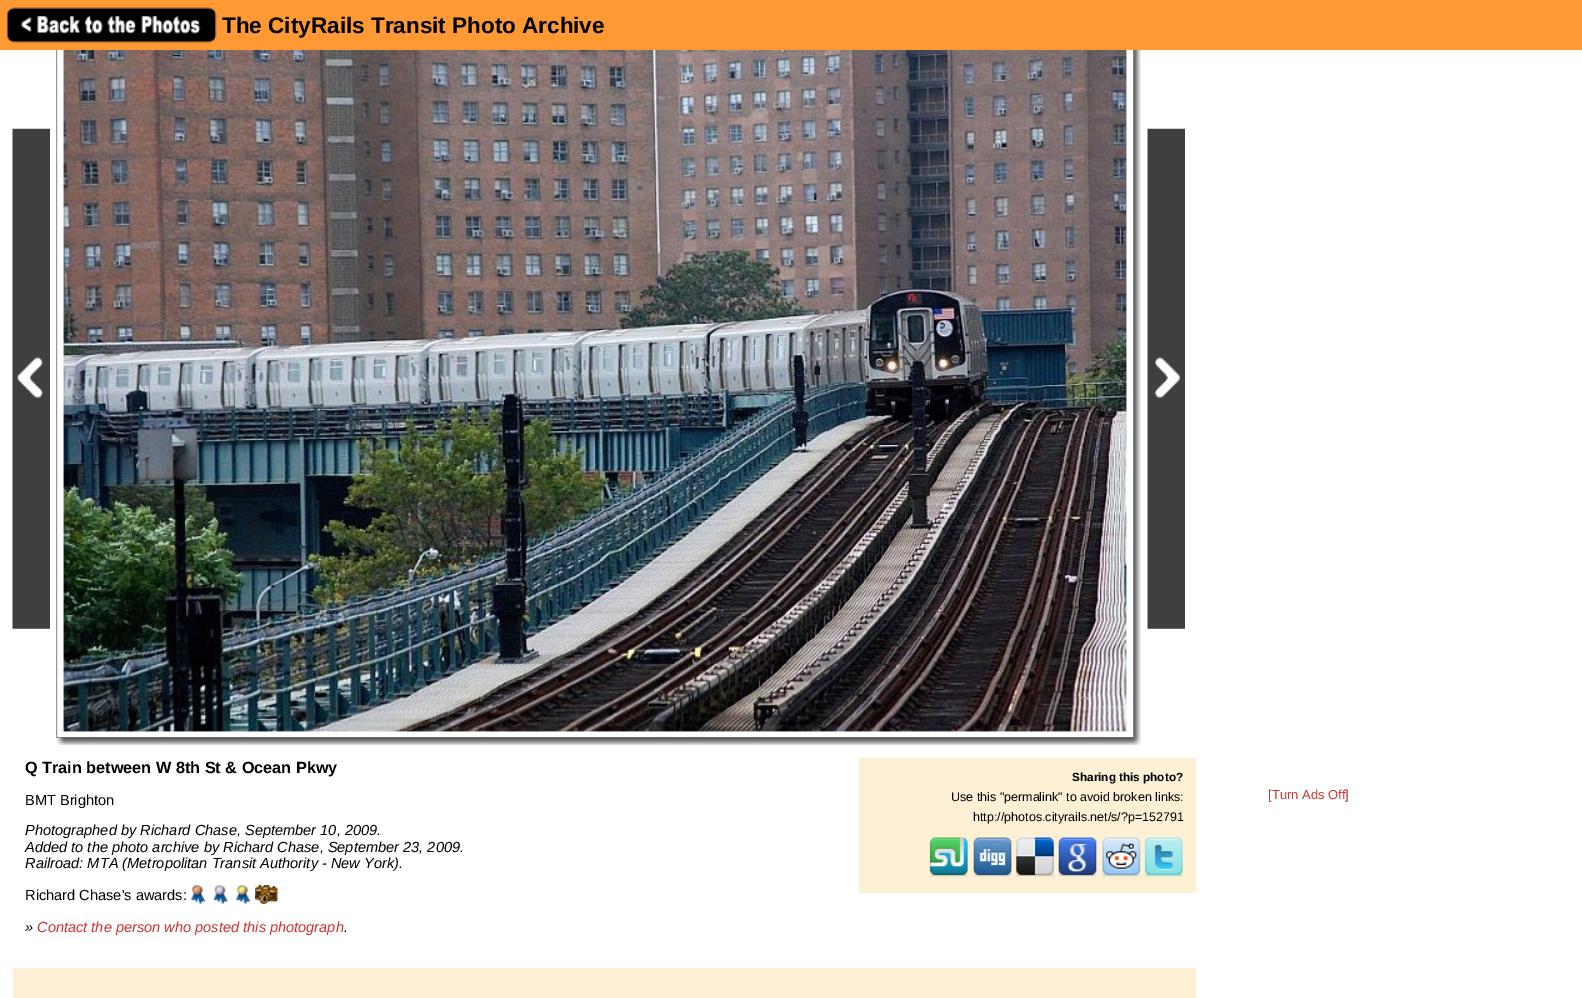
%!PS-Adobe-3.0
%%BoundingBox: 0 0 1582 998
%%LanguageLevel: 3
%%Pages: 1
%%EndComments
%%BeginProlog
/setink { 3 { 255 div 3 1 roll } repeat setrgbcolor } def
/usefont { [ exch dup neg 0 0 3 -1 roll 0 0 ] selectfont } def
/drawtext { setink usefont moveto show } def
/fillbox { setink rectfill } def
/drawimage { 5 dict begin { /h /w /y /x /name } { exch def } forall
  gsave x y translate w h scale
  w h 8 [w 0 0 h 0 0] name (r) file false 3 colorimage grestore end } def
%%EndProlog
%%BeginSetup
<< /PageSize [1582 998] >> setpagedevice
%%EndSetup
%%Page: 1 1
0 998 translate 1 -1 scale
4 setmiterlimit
0 0 1582 998 255 255 255 fillbox
154 154 154 setink
56.5 19.5 1077 718 rectstroke
0 0 1582 50 255 153 51 fillbox
(assets/img1.rgb) 7 7 210 36 drawimage
(The CityRails Transit Photo Archive) 222 33 /LiberationSans-Bold 22.5 0 0 0 drawtext
(assets/img2.rgb) 12 128 38 501 drawimage
(assets/img3.rgb) 63 50 1064 682 drawimage
(assets/img4.rgb) 63 50 1064 682 drawimage
(assets/img5.rgb) 1133 50 8 688 drawimage
(assets/img6.rgb) 1147 128 38 501 drawimage
(assets/img7.rgb) 56 737 1078 8 drawimage
(assets/img8.rgb) 1133 737 8 8 drawimage
(Q Train between W 8th St & Ocean Pkwy) 25 773 /LiberationSans-Bold 16.25 0 0 0 drawtext
(BMT Brighton) 25 805 /LiberationSans-Regular 14.6 0 0 0 drawtext
(Photographed by Richard Chase, September 10, 2009.) 25 835 /LiberationSans-Italic 14.6 0 0 0 drawtext
(Added to the photo archive by Richard Chase, September 23, 2009.) 25 852 /LiberationSans-Italic 14.6 0 0 0 drawtext
(Railroad: MTA \(Metropolitan Transit Authority - New York\).) 25 868 /LiberationSans-Italic 14.6 0 0 0 drawtext
(Richard Chase's awards:) 25 900 /LiberationSans-Regular 14.6 0 0 0 drawtext
(assets/img9.rgb) 191 885 15 19 drawimage
(assets/img10.rgb) 213 885 15 19 drawimage
(assets/img11.rgb) 236 885 15 19 drawimage
(assets/img12.rgb) 255 885 23 19 drawimage
(») 25 932 /LiberationSans-Italic 14.6 0 0 0 drawtext
(Contact the person who posted this photograph) 37 932 /LiberationSans-Italic 14.6 204 51 51 drawtext
(.) 344 932 /LiberationSans-Italic 14.6 0 0 0 drawtext
859 758 337 135 253 240 213 fillbox
(Sharing this photo?) 1072 781 /LiberationSans-Bold 11.75 0 0 0 drawtext
(Use this "permalink" to avoid broken links:) 951 801 /LiberationSans-Regular 12.5 0 0 0 drawtext
(http://photos.cityrails.net/s/?p=152791) 973 821 /LiberationSans-Regular 12.5 0 0 0 drawtext
(assets/img13.rgb) 929 837 39 40 drawimage
(assets/img14.rgb) 973 837 39 40 drawimage
(assets/img15.rgb) 1015 837 40 40 drawimage
(assets/img16.rgb) 1058 837 39 40 drawimage
(assets/img17.rgb) 1102 837 39 40 drawimage
(assets/img18.rgb) 1144 837 39 40 drawimage
([Turn Ads Off]) 1268 799 /LiberationSans-Regular 13 204 51 51 drawtext
13 968 1183 30 253 240 213 fillbox
showpage
%%EOF
